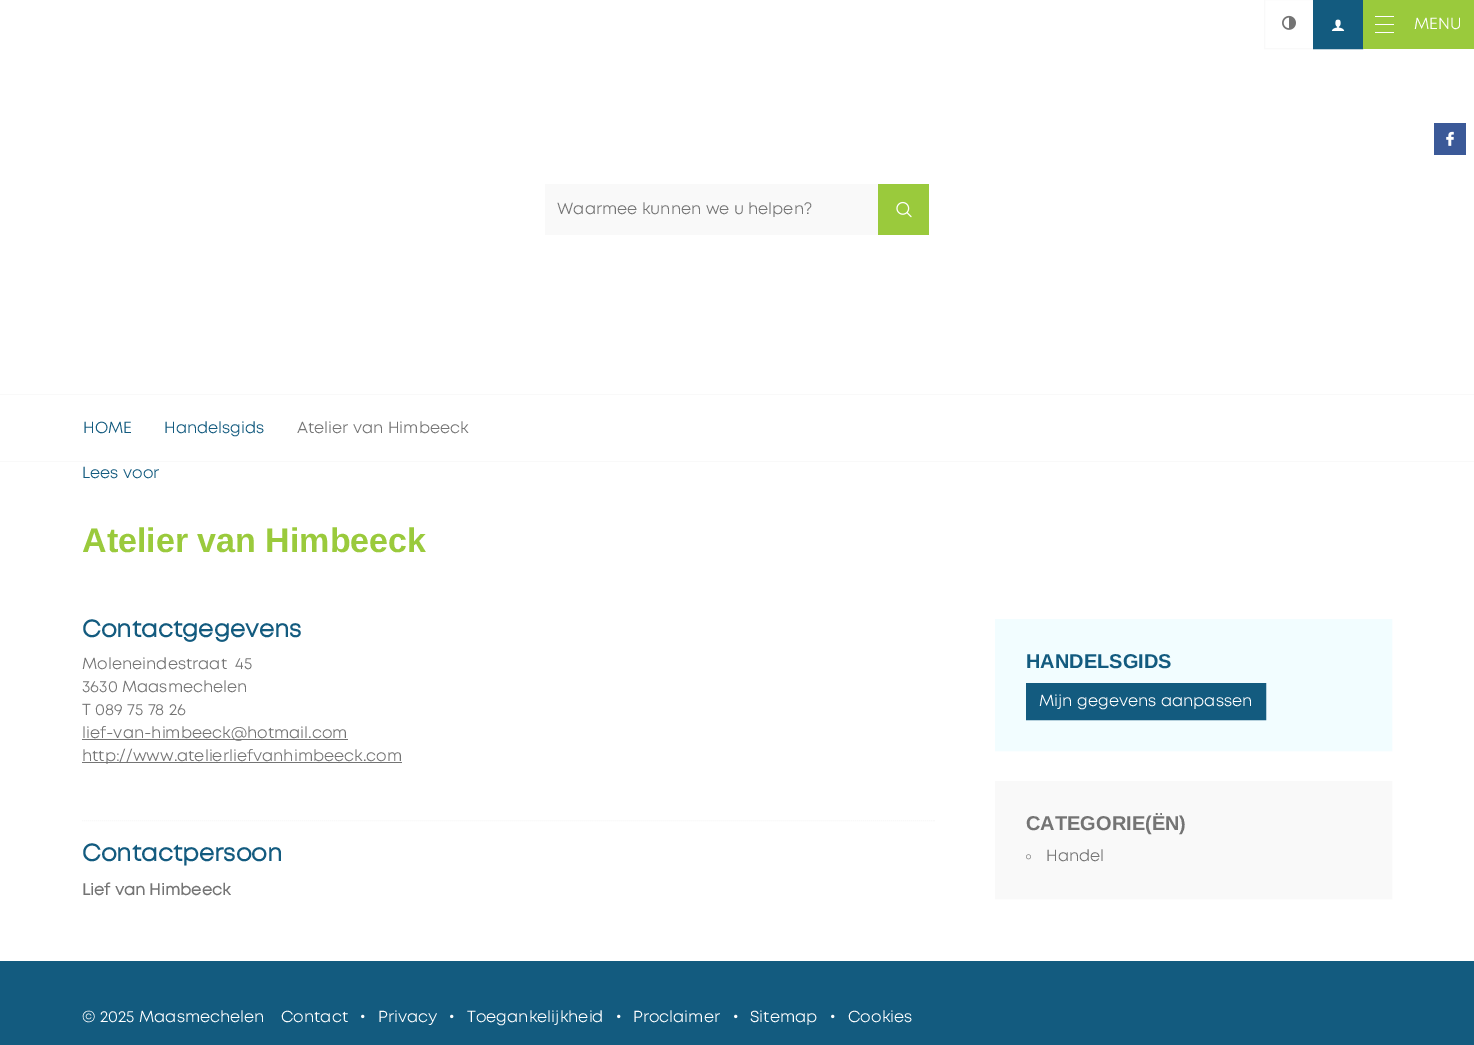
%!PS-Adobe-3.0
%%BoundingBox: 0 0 1474 1045
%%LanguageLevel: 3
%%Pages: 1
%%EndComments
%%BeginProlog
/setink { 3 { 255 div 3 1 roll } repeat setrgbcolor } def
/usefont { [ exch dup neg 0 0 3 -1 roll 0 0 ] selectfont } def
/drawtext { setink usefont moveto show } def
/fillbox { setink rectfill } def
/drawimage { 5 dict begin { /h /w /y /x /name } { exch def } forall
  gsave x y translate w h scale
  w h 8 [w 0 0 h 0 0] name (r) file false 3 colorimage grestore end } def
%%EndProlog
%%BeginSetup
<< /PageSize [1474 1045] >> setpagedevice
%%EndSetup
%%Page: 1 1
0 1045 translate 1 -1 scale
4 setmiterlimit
0 0 1474 1045 255 255 255 fillbox
249 249 249 setink
1264.5 -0.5 49 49 rectstroke
(assets/img1.rgb) 1282 15 14 15 drawimage
19 91 127 setink
1313.5 -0.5 moveto 1362.5 -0.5 lineto 1362.5 48.5 lineto 1313.5 48.5 lineto closepath gsave fill grestore
stroke
(assets/img2.rgb) 1331 19 14 12 drawimage
1363 0 111 49 154 202 60 fillbox
1375 24 19 1 255 255 255 fillbox
1375 16 19 1 255 255 255 fillbox
1375 32 19 1 255 255 255 fillbox
(MENU) 1414 29 /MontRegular-Regular 16 255 255 255 drawtext
1434 123 32 32 59 89 152 fillbox
(assets/img3.rgb) 1446 131 8 15 drawimage
545 184 333 51 249 249 249 fillbox
(Waarmee kunnen we u helpen?) 557 214 /MontRegular-Regular 16 116 116 116 drawtext
878 184 51 51 154 202 60 fillbox
(assets/img4.rgb) 896 201 16 17 drawimage
0 394 1474 1 249 249 249 fillbox
0 461 1474 1 249 249 249 fillbox
(HOME) 83 433 /MontRegular-Regular 16 19 91 127 drawtext
(Handelsgids) 164 433 /MontRegular-Regular 16 19 91 127 drawtext
(Atelier van Himbeeck) 297 433 /MontRegular-Regular 16 116 116 116 drawtext
(Lees voor) 82 478 /MontRegular-Regular 16 19 91 127 drawtext
(Atelier van Himbeeck) 82 552 /LiberationSans-Bold 34 154 202 60 drawtext
(Contactgegevens) 82 637 /MontRegular-Bold 24 19 91 127 drawtext
(Moleneindestraat  45) 82 669 /MontRegular-Regular 16 116 116 116 drawtext
(3630 Maasmechelen) 82 692 /MontRegular-Regular 16 116 116 116 drawtext
(assets/img5.rgb) 82 703 9 12 drawimage
(089 75 78 26) 95 715 /MontRegular-Regular 16 116 116 116 drawtext
82 739 266 1 116 116 116 fillbox
(lief-van-himbeeck@hotmail.com) 82 738 /MontRegular-Regular 16 116 116 116 drawtext
82 762 320 1 116 116 116 fillbox
(http://www.atelierliefvanhimbeeck.com) 82 761 /MontRegular-Regular 16 116 116 116 drawtext
249 249 249 setink
[1 1] 0 setdash
82 820.5 moveto 935 820.5 lineto stroke
(Contactpersoon) 82 861 /MontRegular-Bold 24 19 91 127 drawtext
(Lief van Himbeeck) 82 895 /MontRegular-Bold 16 116 116 116 drawtext
242 253 255 setink
995.5 619.5 moveto 1391.5 619.5 lineto 1391.5 750.5 lineto 995.5 750.5 lineto closepath gsave fill grestore
[] 0 setdash
stroke
(HANDELSGIDS) 1026 668 /LiberationSans-Bold 20 19 91 127 drawtext
1026.5 683.5 moveto 1265.5 683.5 lineto 1265.5 719.5 lineto 1026.5 719.5 lineto closepath gsave fill grestore
stroke
(Mijn gegevens aanpassen) 1039 706 /MontRegular-Regular 16 255 255 255 drawtext
249 249 249 setink
995.5 781.5 moveto 1391.5 781.5 lineto 1391.5 898.5 lineto 995.5 898.5 lineto closepath gsave fill grestore
stroke
(CATEGORIE\(ËN\)) 1026 830 /LiberationSans-Bold 20 116 116 116 drawtext
(assets/img6.rgb) 1026 854 5 6 drawimage
(Handel) 1046 861 /MontRegular-Regular 16 116 116 116 drawtext
0 961 1474 84 19 91 127 fillbox
(© 2025 Maasmechelen) 82 1022 /MontRegular-Regular 16 255 255 255 drawtext
(Contact) 281 1022 /MontRegular-Regular 16 255 255 255 drawtext
(assets/img7.rgb) 361 1014 4 5 drawimage
(Privacy) 378 1022 /MontRegular-Regular 16 255 255 255 drawtext
(assets/img7.rgb) 450 1014 4 5 drawimage
(Toegankelijkheid) 467 1022 /MontRegular-Regular 16 255 255 255 drawtext
(assets/img7.rgb) 617 1014 4 5 drawimage
(Proclaimer) 633 1022 /MontRegular-Regular 16 255 255 255 drawtext
(assets/img7.rgb) 734 1014 4 5 drawimage
(Sitemap) 750 1022 /MontRegular-Regular 16 255 255 255 drawtext
(assets/img7.rgb) 831 1014 4 5 drawimage
(Cookies) 848 1022 /MontRegular-Regular 16 255 255 255 drawtext
showpage
%%EOF
